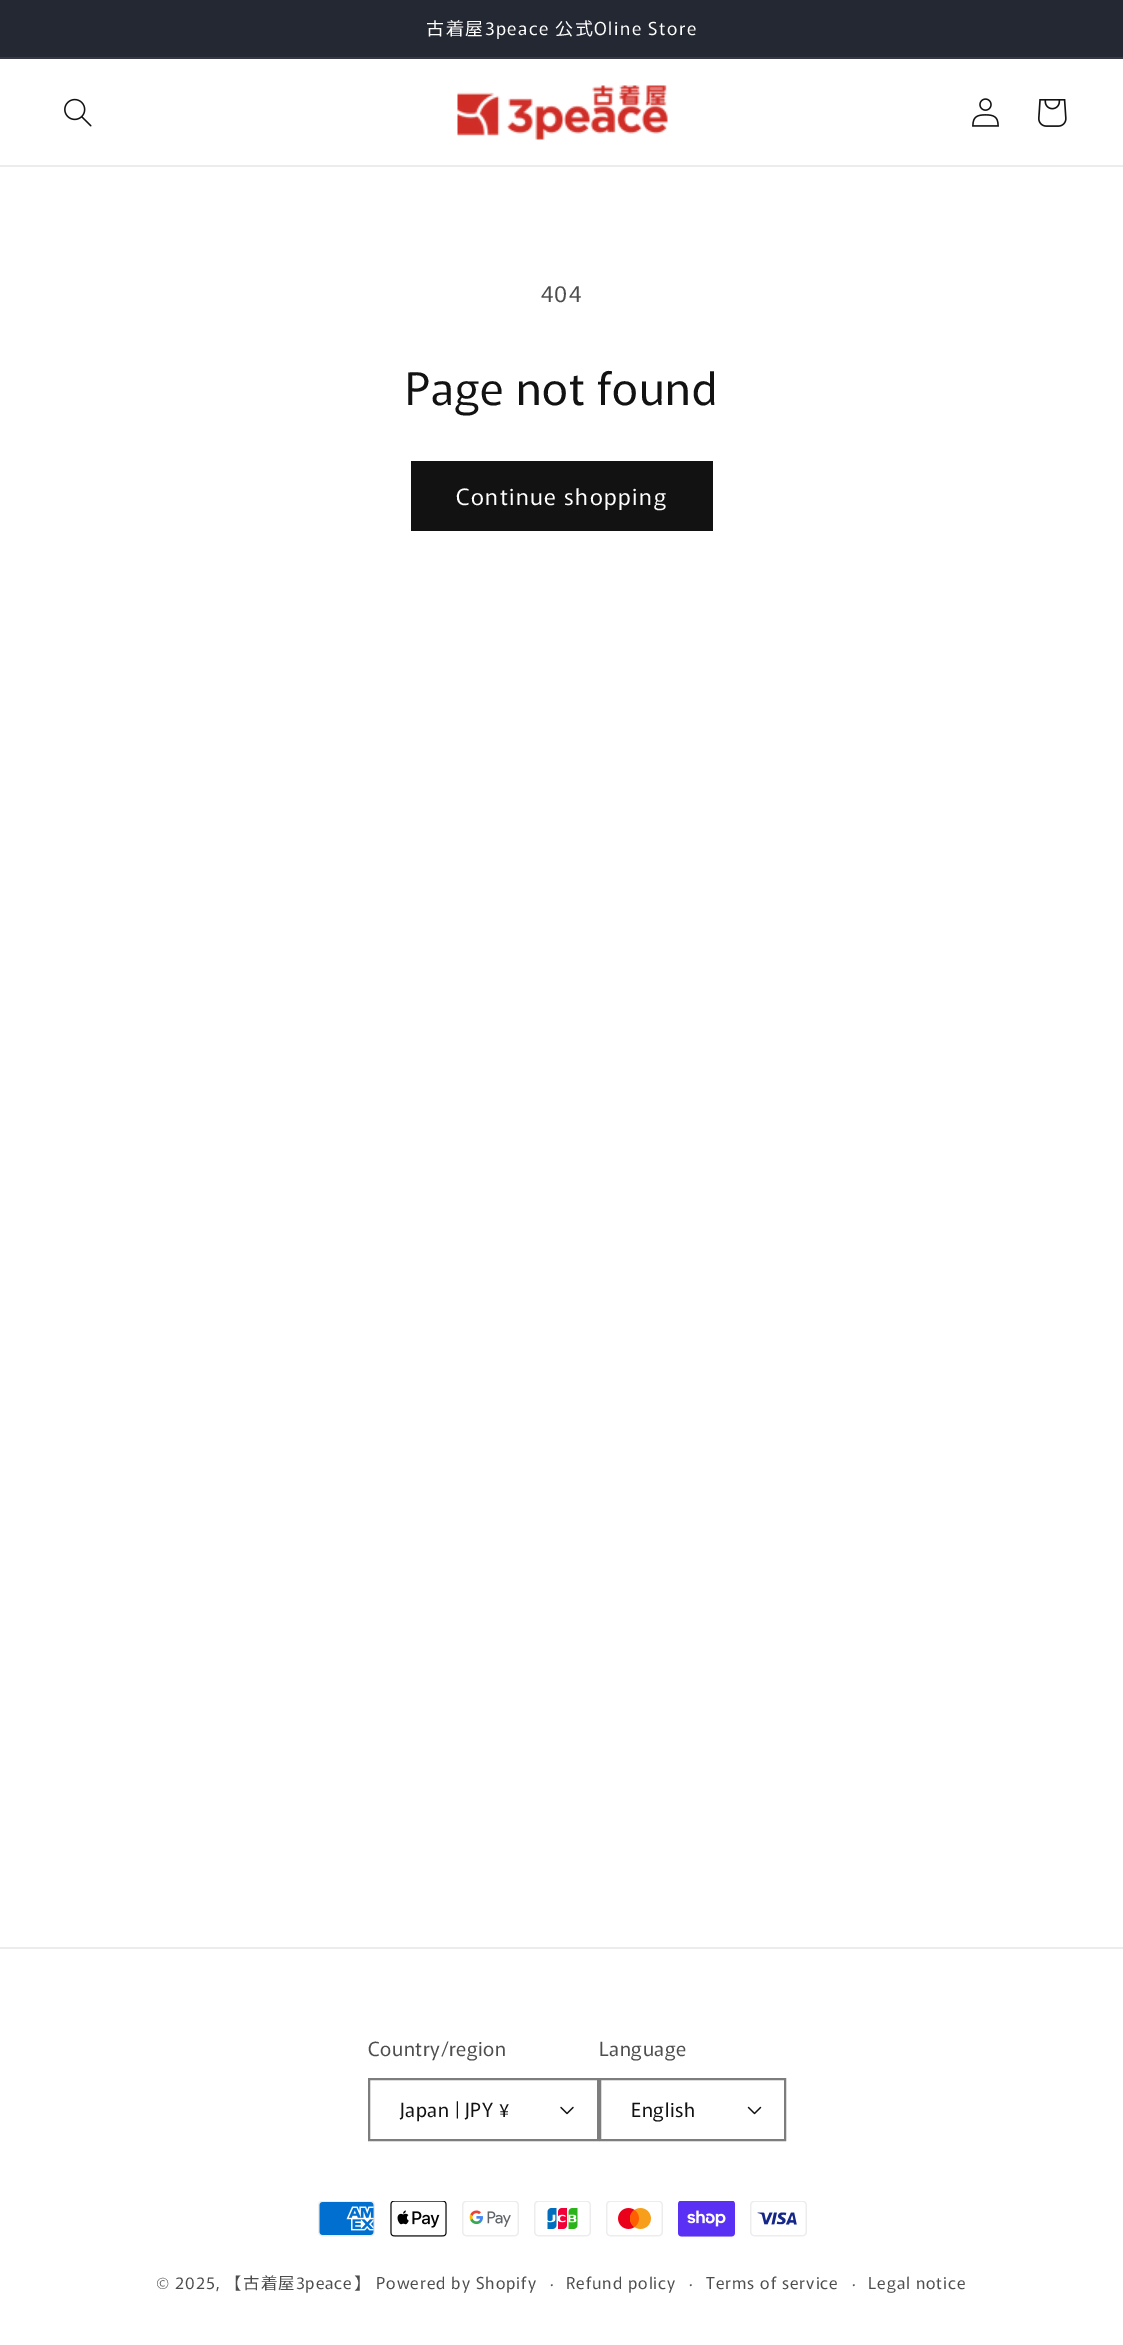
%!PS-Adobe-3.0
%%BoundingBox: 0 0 1123 2345
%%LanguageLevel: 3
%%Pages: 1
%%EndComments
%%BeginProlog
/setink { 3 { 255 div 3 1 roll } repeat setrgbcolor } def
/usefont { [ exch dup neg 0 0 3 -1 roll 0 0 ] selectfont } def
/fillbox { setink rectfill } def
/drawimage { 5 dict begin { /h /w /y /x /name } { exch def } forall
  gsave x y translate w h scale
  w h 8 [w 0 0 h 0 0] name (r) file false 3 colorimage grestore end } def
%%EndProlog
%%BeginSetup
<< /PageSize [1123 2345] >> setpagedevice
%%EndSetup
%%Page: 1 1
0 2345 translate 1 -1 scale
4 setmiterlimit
0 0 1123 2345 255 255 255 fillbox
0 0 1123 57 36 40 51 fillbox
0 57 1123 2 54 57 67 fillbox
/Murecho-Regular 18 usefont
255 255 255 setink
426 35 moveto 1.5 0 (古着屋3peace 公式Oline Store) ashow
0 165 1123 2 236 236 236 fillbox
(assets/img1.rgb) 64 98 28 29 drawimage
(assets/img2.rgb) 457 85 211 55 drawimage
(assets/img3.rgb) 972 98 27 29 drawimage
(assets/img4.rgb) 1038 99 29 28 drawimage
/Murecho-Regular 22.5 usefont
77 77 77 setink
541 302 moveto 0.9 0 (404) ashow
/Murecho-Regular 45 usefont
18 18 18 setink
405 405 moveto 0.9 0 (Page not found) ashow
411 461 302 70 18 18 18 fillbox
/Murecho-Regular 22.5 usefont
255 255 255 setink
456 505 moveto 1.5 0 (Continue shopping) ashow
0 1947 1123 2 236 236 236 fillbox
/Murecho-Regular 19.5 usefont
77 77 77 setink
368 2056 moveto 0.6 0 (Country/region) ashow
(assets/img5.rgb) 560 2106 14 9 drawimage
125 125 125 setink
2 setlinewidth
369 2079 229 61 rectstroke
18 18 18 setink
400 2117 moveto 0.6 0 (Japan | JPY ¥) ashow
77 77 77 setink
599 2056 moveto 0.6 0 (Language) ashow
(assets/img6.rgb) 747 2106 15 9 drawimage
125 125 125 setink
600 2079 185 61 rectstroke
18 18 18 setink
631 2117 moveto 0.6 0 (English) ashow
(assets/img7.rgb) 318 2201 57 36 drawimage
(assets/img8.rgb) 390 2201 57 36 drawimage
(assets/img9.rgb) 462 2201 57 36 drawimage
(assets/img10.rgb) 534 2201 57 36 drawimage
(assets/img11.rgb) 606 2201 57 36 drawimage
(assets/img12.rgb) 678 2201 57 36 drawimage
(assets/img13.rgb) 750 2201 57 36 drawimage
/Murecho-Regular 16.5 usefont
77 77 77 setink
156 2289 moveto 1 0 (© 2025, 【古着屋3peace】) ashow
376 2289 moveto 1 0 (Powered by Shopify) ashow
/Murecho-Regular 15 usefont
550 2289 moveto 1 0 (·) ashow
/Murecho-Regular 16.5 usefont
566 2289 moveto 1 0 (Refund policy) ashow
/Murecho-Regular 15 usefont
689 2289 moveto 1 0 (·) ashow
/Murecho-Regular 16.5 usefont
706 2289 moveto 1 0 (Terms of service) ashow
/Murecho-Regular 15 usefont
852 2289 moveto 1 0 (·) ashow
/Murecho-Regular 16.5 usefont
868 2289 moveto 1 0 (Legal notice) ashow
showpage
%%EOF
